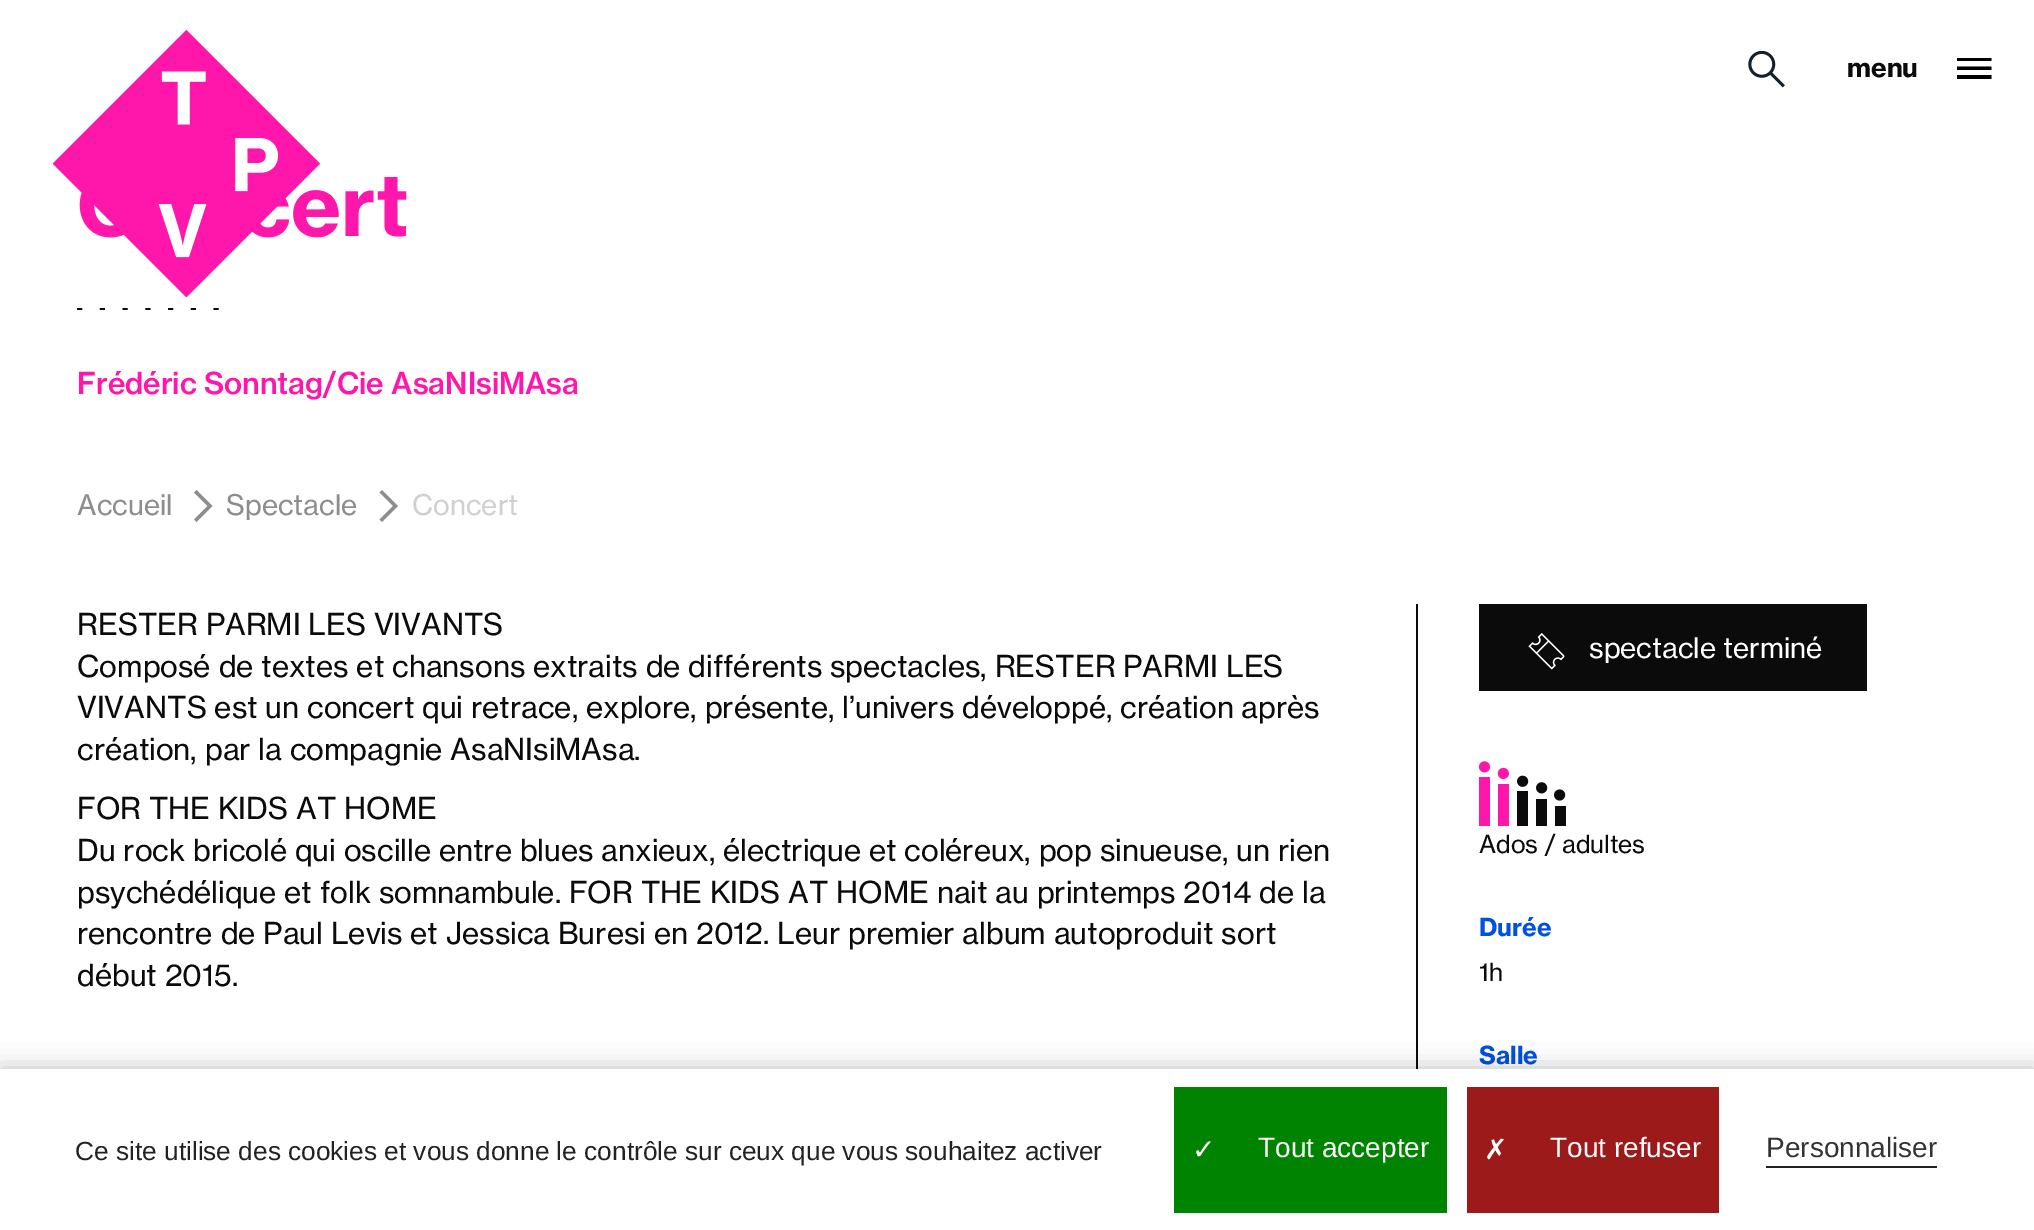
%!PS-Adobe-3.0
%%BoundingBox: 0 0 2034 1230
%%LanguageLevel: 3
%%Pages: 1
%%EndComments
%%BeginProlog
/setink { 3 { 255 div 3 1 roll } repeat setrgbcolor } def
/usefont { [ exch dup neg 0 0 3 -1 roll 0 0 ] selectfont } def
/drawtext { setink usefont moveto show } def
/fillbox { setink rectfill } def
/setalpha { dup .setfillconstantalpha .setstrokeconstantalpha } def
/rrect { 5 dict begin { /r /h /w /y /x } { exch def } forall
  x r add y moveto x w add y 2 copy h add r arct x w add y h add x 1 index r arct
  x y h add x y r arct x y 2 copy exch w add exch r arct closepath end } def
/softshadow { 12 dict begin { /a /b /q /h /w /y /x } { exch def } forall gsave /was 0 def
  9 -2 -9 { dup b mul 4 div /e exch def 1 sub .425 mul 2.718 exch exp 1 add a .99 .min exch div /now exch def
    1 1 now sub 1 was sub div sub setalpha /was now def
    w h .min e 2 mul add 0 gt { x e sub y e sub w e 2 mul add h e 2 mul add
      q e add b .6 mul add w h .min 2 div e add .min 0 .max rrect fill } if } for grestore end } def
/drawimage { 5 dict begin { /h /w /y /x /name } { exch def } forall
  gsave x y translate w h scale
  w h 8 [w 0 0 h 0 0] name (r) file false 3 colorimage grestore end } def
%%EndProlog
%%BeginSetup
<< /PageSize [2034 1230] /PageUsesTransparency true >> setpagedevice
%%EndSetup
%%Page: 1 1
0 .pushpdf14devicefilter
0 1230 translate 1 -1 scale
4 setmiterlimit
0 0 2034 1230 255 255 255 fillbox
(ert) 291 236 /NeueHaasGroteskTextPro-Bold 84 255 23 171 drawtext
(assets/img1.rgb) 53 30 267 268 drawimage
(assets/img2.rgb) 1748 51 37 37 drawimage
(menu) 1847 77 /NeueHaasGroteskTextPro-Bold 26.25 11 11 11 drawtext
gsave
1957 58 35 21 rectclip
0 0 0 setink
1956.5 79 moveto 1956.5 75 lineto 1991.5 75 lineto 1991.5 79 lineto closepath 1956.5 70 moveto 1956.5 66.5 lineto 1991.5 66.5 lineto 1991.5 70 lineto closepath 1956.5 61 moveto 1956.5 58 lineto 1991.5 58 lineto 1991.5 61 lineto closepath fill
grestore
1.7 setlinewidth
[5.25 17.5] 0 setdash
77 309 moveto 226 309 lineto stroke
(Frédéric Sonntag/Cie AsaNIsiMAsa) 77 394 /NeueHaasGroteskTextPro-Medium 29.75 255 23 171 drawtext
(Accueil) 77 515 /NeueHaasGroteskTextPro-Regular 28 141 141 141 drawtext
(Spectacle) 226 515 /NeueHaasGroteskTextPro-Regular 28 141 141 141 drawtext
3.5 setlinewidth
2 setlinecap
[] 0 setdash
196.5 492.5 moveto 210 506 lineto 196.5 519.5 lineto stroke
(Concert) 412 515 /NeueHaasGroteskTextPro-Regular 28 208 208 208 drawtext
141 141 141 setink
382 492.5 moveto 395.5 506 lineto 382 519.5 lineto stroke
(RESTER PARMI LES VIVANTS) 77 635 /NeueHaasGroteskTextPro-Regular 29.75 11 11 11 drawtext
(Composé de textes et chansons extraits de différents spectacles, RESTER PARMI LES) 77 677 /NeueHaasGroteskTextPro-Regular 29.75 11 11 11 drawtext
(VIVANTS est un concert qui retrace, explore, présente, l’univers développé, création après) 77 718 /NeueHaasGroteskTextPro-Regular 29.75 11 11 11 drawtext
(création, par la compagnie AsaNIsiMAsa.) 77 760 /NeueHaasGroteskTextPro-Regular 29.75 11 11 11 drawtext
(FOR THE KIDS AT HOME) 77 819 /NeueHaasGroteskTextPro-Regular 29.75 11 11 11 drawtext
(Du rock bricolé qui oscille entre blues anxieux, électrique et coléreux, pop sinueuse, un rien) 77 861 /NeueHaasGroteskTextPro-Regular 29.75 11 11 11 drawtext
(psychédélique et folk somnambule. FOR THE KIDS AT HOME nait au printemps 2014 de la) 77 903 /NeueHaasGroteskTextPro-Regular 29.75 11 11 11 drawtext
(rencontre de Paul Levis et Jessica Buresi en 2012. Leur premier album autoproduit sort) 77 944 /NeueHaasGroteskTextPro-Regular 29.75 11 11 11 drawtext
(début 2015.) 77 986 /NeueHaasGroteskTextPro-Regular 29.75 11 11 11 drawtext
1416 604 2 465 11 11 11 fillbox
1479 604 388 87 11 11 11 fillbox
(assets/img3.rgb) 1528 633 37 37 drawimage
(spectacle terminé) 1589 658 /NeueHaasGroteskTextPro-Regular 28 255 255 255 drawtext
(assets/img4.rgb) 1479 761 87 65 drawimage
(Ados / adultes) 1479 853 /NeueHaasGroteskTextPro-Regular 24.5 11 11 11 drawtext
(Durée) 1479 936 /NeueHaasGroteskTextPro-Bold 24.5 0 81 225 drawtext
(1h) 1479 981 /NeueHaasGroteskTextPro-Regular 24.5 11 11 11 drawtext
(Salle) 1479 1064 /NeueHaasGroteskTextPro-Bold 24.5 0 81 225 drawtext
0 0 0 setink
0 1069 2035 161 0 12 0.25 softshadow
0 1069 2034 161 255 255 255 fillbox
(Ce site utilise des cookies et vous donne le contrôle sur ceux que vous souhaitez activer) 75 1160 /LiberationSans-Regular 26.25 34 34 34 drawtext
1174 1087 273 126 0 131 0 fillbox
(✓) 1192 1159 /DejaVuSans-Regular 28 255 255 255 drawtext
(Tout accepter) 1258 1157 /LiberationSans-Regular 28 255 255 255 drawtext
1467 1087 252 126 156 26 26 fillbox
(✗) 1484 1159 /DejaVuSans-Regular 28 255 255 255 drawtext
(Tout refuser) 1550 1157 /LiberationSans-Regular 28 255 255 255 drawtext
(Personnaliser) 1766 1157 /LiberationSans-Regular 28 51 51 51 drawtext
1766 1166 171 2 34 34 34 fillbox
.poppdf14devicefilter showpage
%%EOF
